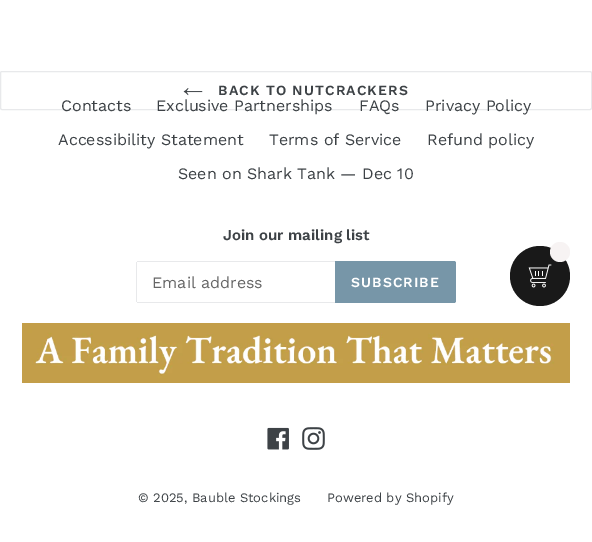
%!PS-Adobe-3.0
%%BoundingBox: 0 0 592 542
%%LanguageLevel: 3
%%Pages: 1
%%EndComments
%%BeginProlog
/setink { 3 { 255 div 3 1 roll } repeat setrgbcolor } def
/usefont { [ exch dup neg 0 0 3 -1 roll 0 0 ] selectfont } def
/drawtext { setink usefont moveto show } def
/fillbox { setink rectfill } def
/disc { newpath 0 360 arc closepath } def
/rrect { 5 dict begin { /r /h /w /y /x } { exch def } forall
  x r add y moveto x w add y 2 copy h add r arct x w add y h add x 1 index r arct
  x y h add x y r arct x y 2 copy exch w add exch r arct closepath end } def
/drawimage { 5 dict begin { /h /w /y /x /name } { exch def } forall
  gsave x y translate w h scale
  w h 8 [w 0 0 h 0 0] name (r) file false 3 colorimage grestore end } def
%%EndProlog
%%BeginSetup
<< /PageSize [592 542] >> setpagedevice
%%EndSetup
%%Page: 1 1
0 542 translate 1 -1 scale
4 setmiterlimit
0 0 592 542 255 255 255 fillbox
232 233 235 setink
0.5 71.5 591 38 1.5 rrect stroke
(assets/img1.rgb) 183 88 20 8 drawimage
/WorkSans-SemiBold 14 usefont
61 66 70 setink
218 95 moveto 1.1 0 (BACK TO NUTCRACKERS) ashow
(Contacts) 61 111 /WorkSans-Regular 16 61 66 70 drawtext
(Exclusive Partnerships) 156 111 /WorkSans-Regular 16 61 66 70 drawtext
(FAQs) 359 111 /WorkSans-Regular 16 61 66 70 drawtext
(Privacy Policy) 425 111 /WorkSans-Regular 16 61 66 70 drawtext
(Accessibility Statement) 58 145 /WorkSans-Regular 16 61 66 70 drawtext
(Terms of Service) 269 145 /WorkSans-Regular 16 61 66 70 drawtext
(Refund policy) 427 145 /WorkSans-Regular 16 61 66 70 drawtext
(Seen on Shark Tank — Dec 10) 178 179 /WorkSans-Regular 16 61 66 70 drawtext
(Join our mailing list) 223 240 /WorkSans-SemiBold 15 61 66 70 drawtext
137 261 198 1 232 233 235 fillbox
137 302 198 1 232 233 235 fillbox
136 262 1 40 232 233 235 fillbox
(Email address) 152 288 /WorkSans-Regular 16 102 102 102 drawtext
119 150 168 setink
335 261 moveto 454 261 lineto 455 261 456 262 456 263 curveto 456 301 lineto 456 302 455 303 454 303 curveto 335 303 lineto closepath fill
/WorkSans-SemiBold 14 usefont
255 255 255 setink
351 287 moveto 1.1 0 (SUBSCRIBE) ashow
(assets/img2.rgb) 22 323 548 60 drawimage
(assets/img3.rgb) 267 427 22 23 drawimage
(assets/img4.rgb) 302 427 23 23 drawimage
(© 2025, Bauble Stockings) 138 502 /WorkSans-Regular 13 61 66 70 drawtext
(Powered by Shopify) 327 502 /WorkSans-Regular 13 61 66 70 drawtext
25 25 25 setink
540 276 30 disc fill
247 243 243 setink
560 252 10 disc fill
(assets/img5.rgb) 528 264 24 24 drawimage
showpage
%%EOF
